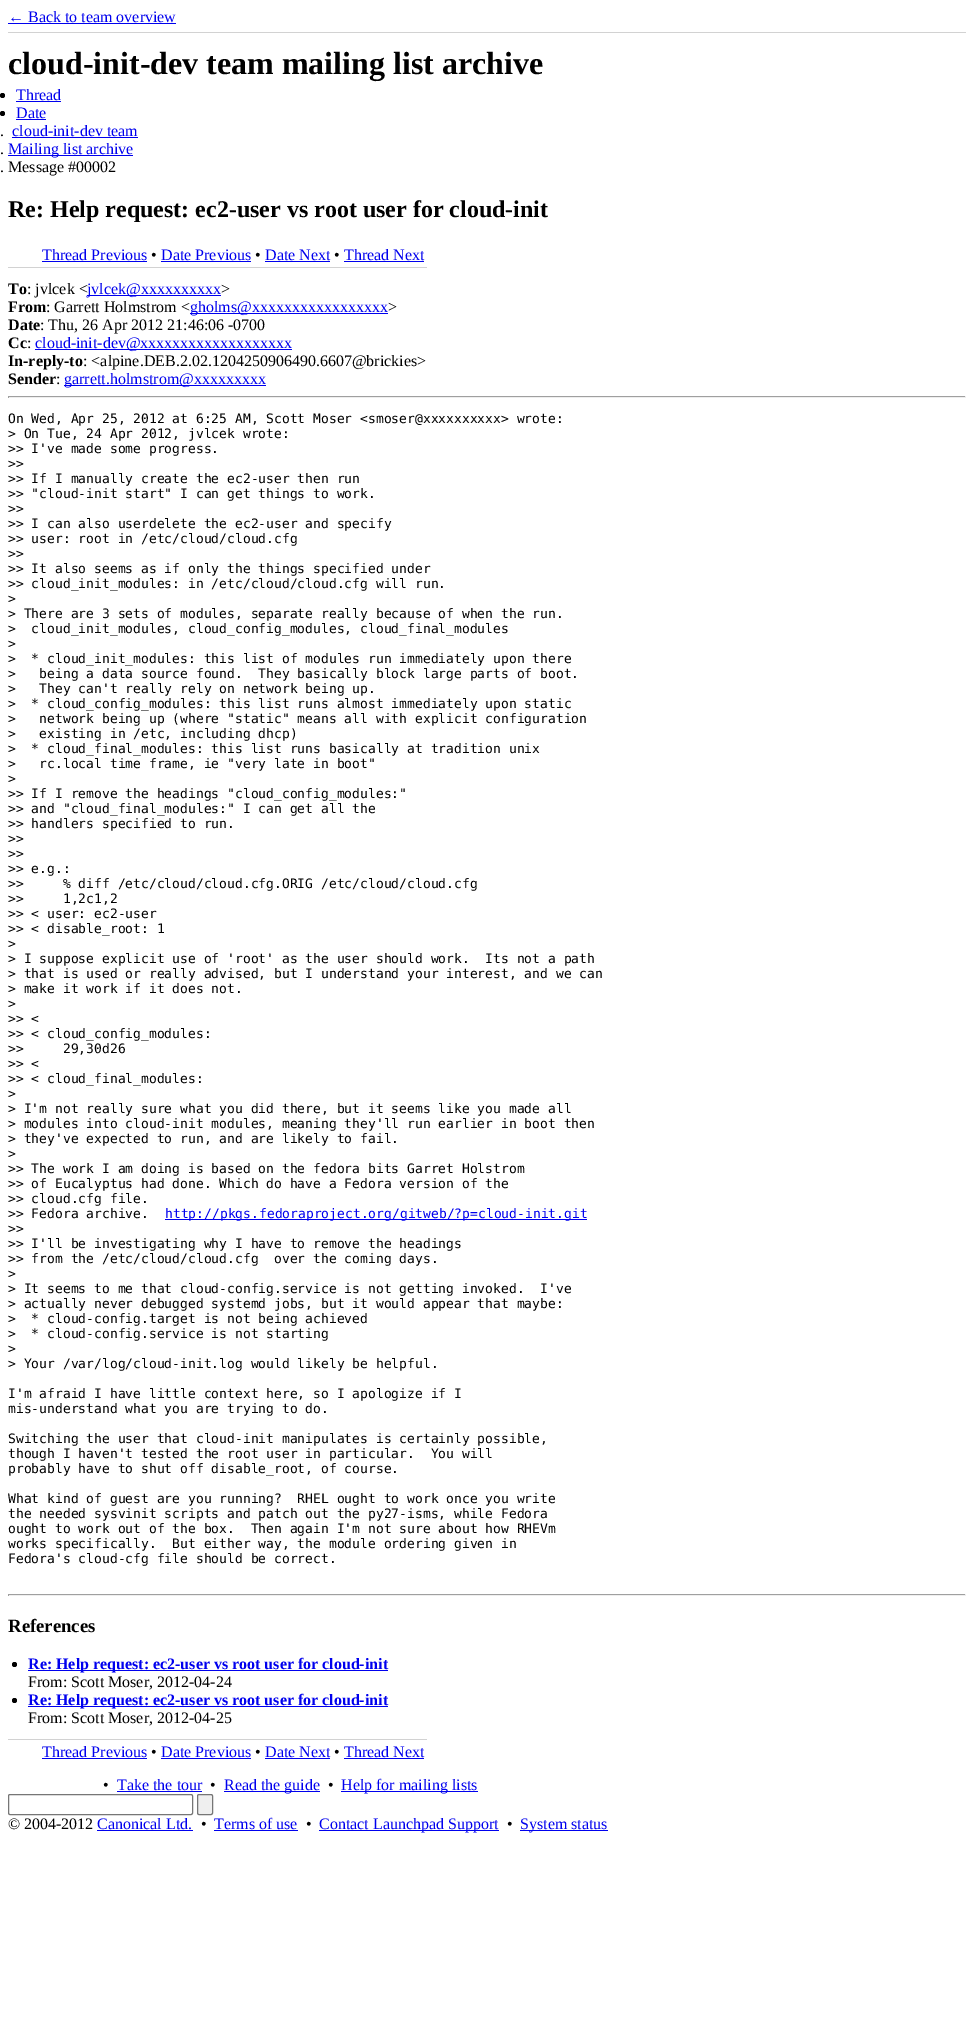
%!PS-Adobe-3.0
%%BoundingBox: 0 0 974 2035
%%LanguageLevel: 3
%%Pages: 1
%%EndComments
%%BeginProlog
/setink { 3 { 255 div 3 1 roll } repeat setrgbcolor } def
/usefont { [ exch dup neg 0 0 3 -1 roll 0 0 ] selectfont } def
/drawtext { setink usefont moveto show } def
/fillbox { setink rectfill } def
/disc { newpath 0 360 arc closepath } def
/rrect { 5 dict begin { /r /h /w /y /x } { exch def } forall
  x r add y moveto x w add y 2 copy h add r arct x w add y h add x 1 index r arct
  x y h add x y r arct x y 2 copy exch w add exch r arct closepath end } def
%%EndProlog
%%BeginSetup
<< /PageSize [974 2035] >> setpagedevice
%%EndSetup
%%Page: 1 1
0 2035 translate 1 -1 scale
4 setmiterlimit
0 0 974 2035 255 255 255 fillbox
8 32 958 1 210 210 210 fillbox
(← Back to team overview) 8 22 /LiberationSerif-Regular 16 0 0 238 drawtext
8 23 168 1 0 0 238 fillbox
(cloud-init-dev team mailing list archive) 8 74 /LiberationSerif-Bold 32 0 0 0 drawtext
2.5 95.5 2.5 disc fill
(Thread) 16 100 /LiberationSerif-Regular 16 0 0 238 drawtext
16 101 45 1 0 0 238 fillbox
0 0 0 setink
2.5 113.5 2.5 disc fill
(Date) 16 118 /LiberationSerif-Regular 16 0 0 238 drawtext
16 119 30 1 0 0 238 fillbox
(.) 0 136 /LiberationSerif-Regular 16 0 0 0 drawtext
(cloud-init-dev team) 12 136 /LiberationSerif-Regular 16 0 0 238 drawtext
12 137 126 1 0 0 238 fillbox
(.) 0 154 /LiberationSerif-Regular 16 0 0 0 drawtext
8 155 125 1 0 0 238 fillbox
(Mailing list archive) 8 154 /LiberationSerif-Regular 16 0 0 238 drawtext
(. Message #00002) 0 172 /LiberationSerif-Regular 16 0 0 0 drawtext
(Re: Help request: ec2-user vs root user for cloud-init) 8 217 /LiberationSerif-Bold 24 0 0 0 drawtext
8 267 419 1 210 210 210 fillbox
(Thread Previous) 42 260 /LiberationSerif-Regular 16 0 0 238 drawtext
42 261 105 1 0 0 238 fillbox
(•) 151 260 /LiberationSerif-Regular 16 0 0 0 drawtext
(Date Previous) 161 260 /LiberationSerif-Regular 16 0 0 238 drawtext
161 261 90 1 0 0 238 fillbox
(•) 255 260 /LiberationSerif-Regular 16 0 0 0 drawtext
(Date Next) 265 260 /LiberationSerif-Regular 16 0 0 238 drawtext
265 261 65 1 0 0 238 fillbox
(•) 334 260 /LiberationSerif-Regular 16 0 0 0 drawtext
(Thread Next) 344 260 /LiberationSerif-Regular 16 0 0 238 drawtext
344 261 80 1 0 0 238 fillbox
(To) 8 294 /LiberationSerif-Bold 16 0 0 0 drawtext
(: jvlcek <) 27 294 /LiberationSerif-Regular 16 0 0 0 drawtext
87 295 134 1 0 0 238 fillbox
(jvlcek@xxxxxxxxxx) 87 294 /LiberationSerif-Regular 16 0 0 238 drawtext
(>) 221 294 /LiberationSerif-Regular 16 0 0 0 drawtext
(From) 8 312 /LiberationSerif-Bold 16 0 0 0 drawtext
(: Garrett Holmstrom <) 46 312 /LiberationSerif-Regular 16 0 0 0 drawtext
190 313 198 1 0 0 238 fillbox
(gholms@xxxxxxxxxxxxxxxxx) 190 312 /LiberationSerif-Regular 16 0 0 238 drawtext
(>) 388 312 /LiberationSerif-Regular 16 0 0 0 drawtext
(Date) 8 330 /LiberationSerif-Bold 16 0 0 0 drawtext
(: Thu, 26 Apr 2012 21:46:06 -0700) 40 330 /LiberationSerif-Regular 16 0 0 0 drawtext
(Cc) 8 348 /LiberationSerif-Bold 16 0 0 0 drawtext
(:) 27 348 /LiberationSerif-Regular 16 0 0 0 drawtext
35 349 257 1 0 0 238 fillbox
(cloud-init-dev@xxxxxxxxxxxxxxxxxxx) 35 348 /LiberationSerif-Regular 16 0 0 238 drawtext
(In-reply-to) 8 366 /LiberationSerif-Bold 16 0 0 0 drawtext
(: <alpine.DEB.2.02.1204250906490.6607@brickies>) 83 366 /LiberationSerif-Regular 16 0 0 0 drawtext
(Sender) 8 384 /LiberationSerif-Bold 16 0 0 0 drawtext
(:) 56 384 /LiberationSerif-Regular 16 0 0 0 drawtext
64 385 202 1 0 0 238 fillbox
(garrett.holmstrom@xxxxxxxxx) 64 384 /LiberationSerif-Regular 16 0 0 238 drawtext
8 396 958 1 159 159 159 fillbox
965 396 1 2 238 238 238 fillbox
8 397 958 1 238 238 238 fillbox
8 396 1 2 159 159 159 fillbox
(On Wed, Apr 25, 2012 at 6:25 AM, Scott Moser <smoser@xxxxxxxxxx> wrote:) 8 423 /DejaVuSansMono-Regular 13 0 0 0 drawtext
(> On Tue, 24 Apr 2012, jvlcek wrote:) 8 438 /DejaVuSansMono-Regular 13 0 0 0 drawtext
(>> I've made some progress.) 8 453 /DejaVuSansMono-Regular 13 0 0 0 drawtext
(>>) 8 468 /DejaVuSansMono-Regular 13 0 0 0 drawtext
(>> If I manually create the ec2-user then run) 8 483 /DejaVuSansMono-Regular 13 0 0 0 drawtext
(>> "cloud-init start" I can get things to work.) 8 498 /DejaVuSansMono-Regular 13 0 0 0 drawtext
(>>) 8 513 /DejaVuSansMono-Regular 13 0 0 0 drawtext
(>> I can also userdelete the ec2-user and specify) 8 528 /DejaVuSansMono-Regular 13 0 0 0 drawtext
(>> user: root in /etc/cloud/cloud.cfg) 8 543 /DejaVuSansMono-Regular 13 0 0 0 drawtext
(>>) 8 558 /DejaVuSansMono-Regular 13 0 0 0 drawtext
(>> It also seems as if only the things specified under) 8 573 /DejaVuSansMono-Regular 13 0 0 0 drawtext
(>> cloud_init_modules: in /etc/cloud/cloud.cfg will run.) 8 588 /DejaVuSansMono-Regular 13 0 0 0 drawtext
(>) 8 603 /DejaVuSansMono-Regular 13 0 0 0 drawtext
(> There are 3 sets of modules, separate really because of when the run.) 8 618 /DejaVuSansMono-Regular 13 0 0 0 drawtext
(>  cloud_init_modules, cloud_config_modules, cloud_final_modules) 8 633 /DejaVuSansMono-Regular 13 0 0 0 drawtext
(>) 8 648 /DejaVuSansMono-Regular 13 0 0 0 drawtext
(>  * cloud_init_modules: this list of modules run immediately upon there) 8 663 /DejaVuSansMono-Regular 13 0 0 0 drawtext
(>   being a data source found.  They basically block large parts of boot.) 8 678 /DejaVuSansMono-Regular 13 0 0 0 drawtext
(>   They can't really rely on network being up.) 8 693 /DejaVuSansMono-Regular 13 0 0 0 drawtext
(>  * cloud_config_modules: this list runs almost immediately upon static) 8 708 /DejaVuSansMono-Regular 13 0 0 0 drawtext
(>   network being up \(where "static" means all with explicit configuration) 8 723 /DejaVuSansMono-Regular 13 0 0 0 drawtext
(>   existing in /etc, including dhcp\)) 8 738 /DejaVuSansMono-Regular 13 0 0 0 drawtext
(>  * cloud_final_modules: this list runs basically at tradition unix) 8 753 /DejaVuSansMono-Regular 13 0 0 0 drawtext
(>   rc.local time frame, ie "very late in boot") 8 768 /DejaVuSansMono-Regular 13 0 0 0 drawtext
(>) 8 783 /DejaVuSansMono-Regular 13 0 0 0 drawtext
(>> If I remove the headings "cloud_config_modules:") 8 798 /DejaVuSansMono-Regular 13 0 0 0 drawtext
(>> and "cloud_final_modules:" I can get all the) 8 813 /DejaVuSansMono-Regular 13 0 0 0 drawtext
(>> handlers specified to run.) 8 828 /DejaVuSansMono-Regular 13 0 0 0 drawtext
(>>) 8 843 /DejaVuSansMono-Regular 13 0 0 0 drawtext
(>>) 8 858 /DejaVuSansMono-Regular 13 0 0 0 drawtext
(>> e.g.:) 8 873 /DejaVuSansMono-Regular 13 0 0 0 drawtext
(>>     % diff /etc/cloud/cloud.cfg.ORIG /etc/cloud/cloud.cfg) 8 888 /DejaVuSansMono-Regular 13 0 0 0 drawtext
(>>     1,2c1,2) 8 903 /DejaVuSansMono-Regular 13 0 0 0 drawtext
(>> < user: ec2-user) 8 918 /DejaVuSansMono-Regular 13 0 0 0 drawtext
(>> < disable_root: 1) 8 933 /DejaVuSansMono-Regular 13 0 0 0 drawtext
(>) 8 948 /DejaVuSansMono-Regular 13 0 0 0 drawtext
(> I suppose explicit use of 'root' as the user should work.  Its not a path) 8 963 /DejaVuSansMono-Regular 13 0 0 0 drawtext
(> that is used or really advised, but I understand your interest, and we can) 8 978 /DejaVuSansMono-Regular 13 0 0 0 drawtext
(> make it work if it does not.) 8 993 /DejaVuSansMono-Regular 13 0 0 0 drawtext
(>) 8 1008 /DejaVuSansMono-Regular 13 0 0 0 drawtext
(>> <) 8 1023 /DejaVuSansMono-Regular 13 0 0 0 drawtext
(>> < cloud_config_modules:) 8 1038 /DejaVuSansMono-Regular 13 0 0 0 drawtext
(>>     29,30d26) 8 1053 /DejaVuSansMono-Regular 13 0 0 0 drawtext
(>> <) 8 1068 /DejaVuSansMono-Regular 13 0 0 0 drawtext
(>> < cloud_final_modules:) 8 1083 /DejaVuSansMono-Regular 13 0 0 0 drawtext
(>) 8 1098 /DejaVuSansMono-Regular 13 0 0 0 drawtext
(> I'm not really sure what you did there, but it seems like you made all) 8 1113 /DejaVuSansMono-Regular 13 0 0 0 drawtext
(> modules into cloud-init modules, meaning they'll run earlier in boot then) 8 1128 /DejaVuSansMono-Regular 13 0 0 0 drawtext
(> they've expected to run, and are likely to fail.) 8 1143 /DejaVuSansMono-Regular 13 0 0 0 drawtext
(>) 8 1158 /DejaVuSansMono-Regular 13 0 0 0 drawtext
(>> The work I am doing is based on the fedora bits Garret Holstrom) 8 1173 /DejaVuSansMono-Regular 13 0 0 0 drawtext
(>> of Eucalyptus had done. Which do have a Fedora version of the) 8 1188 /DejaVuSansMono-Regular 13 0 0 0 drawtext
(>> cloud.cfg file.) 8 1203 /DejaVuSansMono-Regular 13 0 0 0 drawtext
(>> Fedora archive.) 8 1218 /DejaVuSansMono-Regular 13 0 0 0 drawtext
165 1219 422 1 0 0 238 fillbox
(http://pkgs.fedoraproject.org/gitweb/?p=cloud-init.git) 165 1218 /DejaVuSansMono-Regular 13 0 0 238 drawtext
(>>) 8 1233 /DejaVuSansMono-Regular 13 0 0 0 drawtext
(>> I'll be investigating why I have to remove the headings) 8 1248 /DejaVuSansMono-Regular 13 0 0 0 drawtext
(>> from the /etc/cloud/cloud.cfg  over the coming days.) 8 1263 /DejaVuSansMono-Regular 13 0 0 0 drawtext
(>) 8 1278 /DejaVuSansMono-Regular 13 0 0 0 drawtext
(> It seems to me that cloud-config.service is not getting invoked.  I've) 8 1293 /DejaVuSansMono-Regular 13 0 0 0 drawtext
(> actually never debugged systemd jobs, but it would appear that maybe:) 8 1308 /DejaVuSansMono-Regular 13 0 0 0 drawtext
(>  * cloud-config.target is not being achieved) 8 1323 /DejaVuSansMono-Regular 13 0 0 0 drawtext
(>  * cloud-config.service is not starting) 8 1338 /DejaVuSansMono-Regular 13 0 0 0 drawtext
(>) 8 1353 /DejaVuSansMono-Regular 13 0 0 0 drawtext
(> Your /var/log/cloud-init.log would likely be helpful.) 8 1368 /DejaVuSansMono-Regular 13 0 0 0 drawtext
(I'm afraid I have little context here, so I apologize if I) 8 1398 /DejaVuSansMono-Regular 13 0 0 0 drawtext
(mis-understand what you are trying to do.) 8 1413 /DejaVuSansMono-Regular 13 0 0 0 drawtext
(Switching the user that cloud-init manipulates is certainly possible,) 8 1443 /DejaVuSansMono-Regular 13 0 0 0 drawtext
(though I haven't tested the root user in particular.  You will) 8 1458 /DejaVuSansMono-Regular 13 0 0 0 drawtext
(probably have to shut off disable_root, of course.) 8 1473 /DejaVuSansMono-Regular 13 0 0 0 drawtext
(What kind of guest are you running?  RHEL ought to work once you write) 8 1503 /DejaVuSansMono-Regular 13 0 0 0 drawtext
(the needed sysvinit scripts and patch out the py27-isms, while Fedora) 8 1518 /DejaVuSansMono-Regular 13 0 0 0 drawtext
(ought to work out of the box.  Then again I'm not sure about how RHEVm) 8 1533 /DejaVuSansMono-Regular 13 0 0 0 drawtext
(works specifically.  But either way, the module ordering given in) 8 1548 /DejaVuSansMono-Regular 13 0 0 0 drawtext
(Fedora's cloud-cfg file should be correct.) 8 1563 /DejaVuSansMono-Regular 13 0 0 0 drawtext
8 1594 958 1 159 159 159 fillbox
965 1594 1 2 238 238 238 fillbox
8 1595 958 1 238 238 238 fillbox
8 1594 1 2 159 159 159 fillbox
(References) 8 1632 /LiberationSerif-Bold 18.75 0 0 0 drawtext
14.5 1664.5 2.5 disc fill
28 1670 360 1 0 0 238 fillbox
(Re: Help request: ec2-user vs root user for cloud-init) 28 1669 /LiberationSerif-Bold 16 0 0 238 drawtext
(From: Scott Moser, 2012-04-24) 28 1687 /LiberationSerif-Regular 16 0 0 0 drawtext
14.5 1700.5 2.5 disc fill
28 1706 360 1 0 0 238 fillbox
(Re: Help request: ec2-user vs root user for cloud-init) 28 1705 /LiberationSerif-Bold 16 0 0 238 drawtext
(From: Scott Moser, 2012-04-25) 28 1723 /LiberationSerif-Regular 16 0 0 0 drawtext
8 1739 419 1 210 210 210 fillbox
(Thread Previous) 42 1757 /LiberationSerif-Regular 16 0 0 238 drawtext
42 1758 105 1 0 0 238 fillbox
(•) 151 1757 /LiberationSerif-Regular 16 0 0 0 drawtext
(Date Previous) 161 1757 /LiberationSerif-Regular 16 0 0 238 drawtext
161 1758 90 1 0 0 238 fillbox
(•) 255 1757 /LiberationSerif-Regular 16 0 0 0 drawtext
(Date Next) 265 1757 /LiberationSerif-Regular 16 0 0 238 drawtext
265 1758 65 1 0 0 238 fillbox
(•) 334 1757 /LiberationSerif-Regular 16 0 0 0 drawtext
(Thread Next) 344 1757 /LiberationSerif-Regular 16 0 0 238 drawtext
344 1758 80 1 0 0 238 fillbox
(•) 103 1790 /LiberationSerif-Regular 16 0 0 0 drawtext
(Take the tour) 117 1790 /LiberationSerif-Regular 16 0 0 238 drawtext
117 1791 85 1 0 0 238 fillbox
(•) 210 1790 /LiberationSerif-Regular 16 0 0 0 drawtext
224 1791 96 1 0 0 238 fillbox
(Read the guide) 224 1790 /LiberationSerif-Regular 16 0 0 238 drawtext
(•) 328 1790 /LiberationSerif-Regular 16 0 0 0 drawtext
341 1791 137 1 0 0 238 fillbox
(Help for mailing lists) 341 1790 /LiberationSerif-Regular 16 0 0 238 drawtext
118 118 118 setink
8.5 1794.5 184 20 1.5 rrect stroke
239 239 239 setink
197.5 1794.5 15 20 1.5 rrect gsave fill grestore
118 118 118 setink
stroke
(© 2004-2012) 8 1829 /LiberationSerif-Regular 16 0 0 0 drawtext
(Canonical Ltd.) 97 1829 /LiberationSerif-Regular 16 0 0 238 drawtext
97 1830 96 1 0 0 238 fillbox
(•) 201 1829 /LiberationSerif-Regular 16 0 0 0 drawtext
(Terms of use) 214 1829 /LiberationSerif-Regular 16 0 0 238 drawtext
214 1830 84 1 0 0 238 fillbox
(•) 306 1829 /LiberationSerif-Regular 16 0 0 0 drawtext
319 1830 180 1 0 0 238 fillbox
(Contact Launchpad Support) 319 1829 /LiberationSerif-Regular 16 0 0 238 drawtext
(•) 507 1829 /LiberationSerif-Regular 16 0 0 0 drawtext
520 1830 88 1 0 0 238 fillbox
(System status) 520 1829 /LiberationSerif-Regular 16 0 0 238 drawtext
showpage
%%EOF
